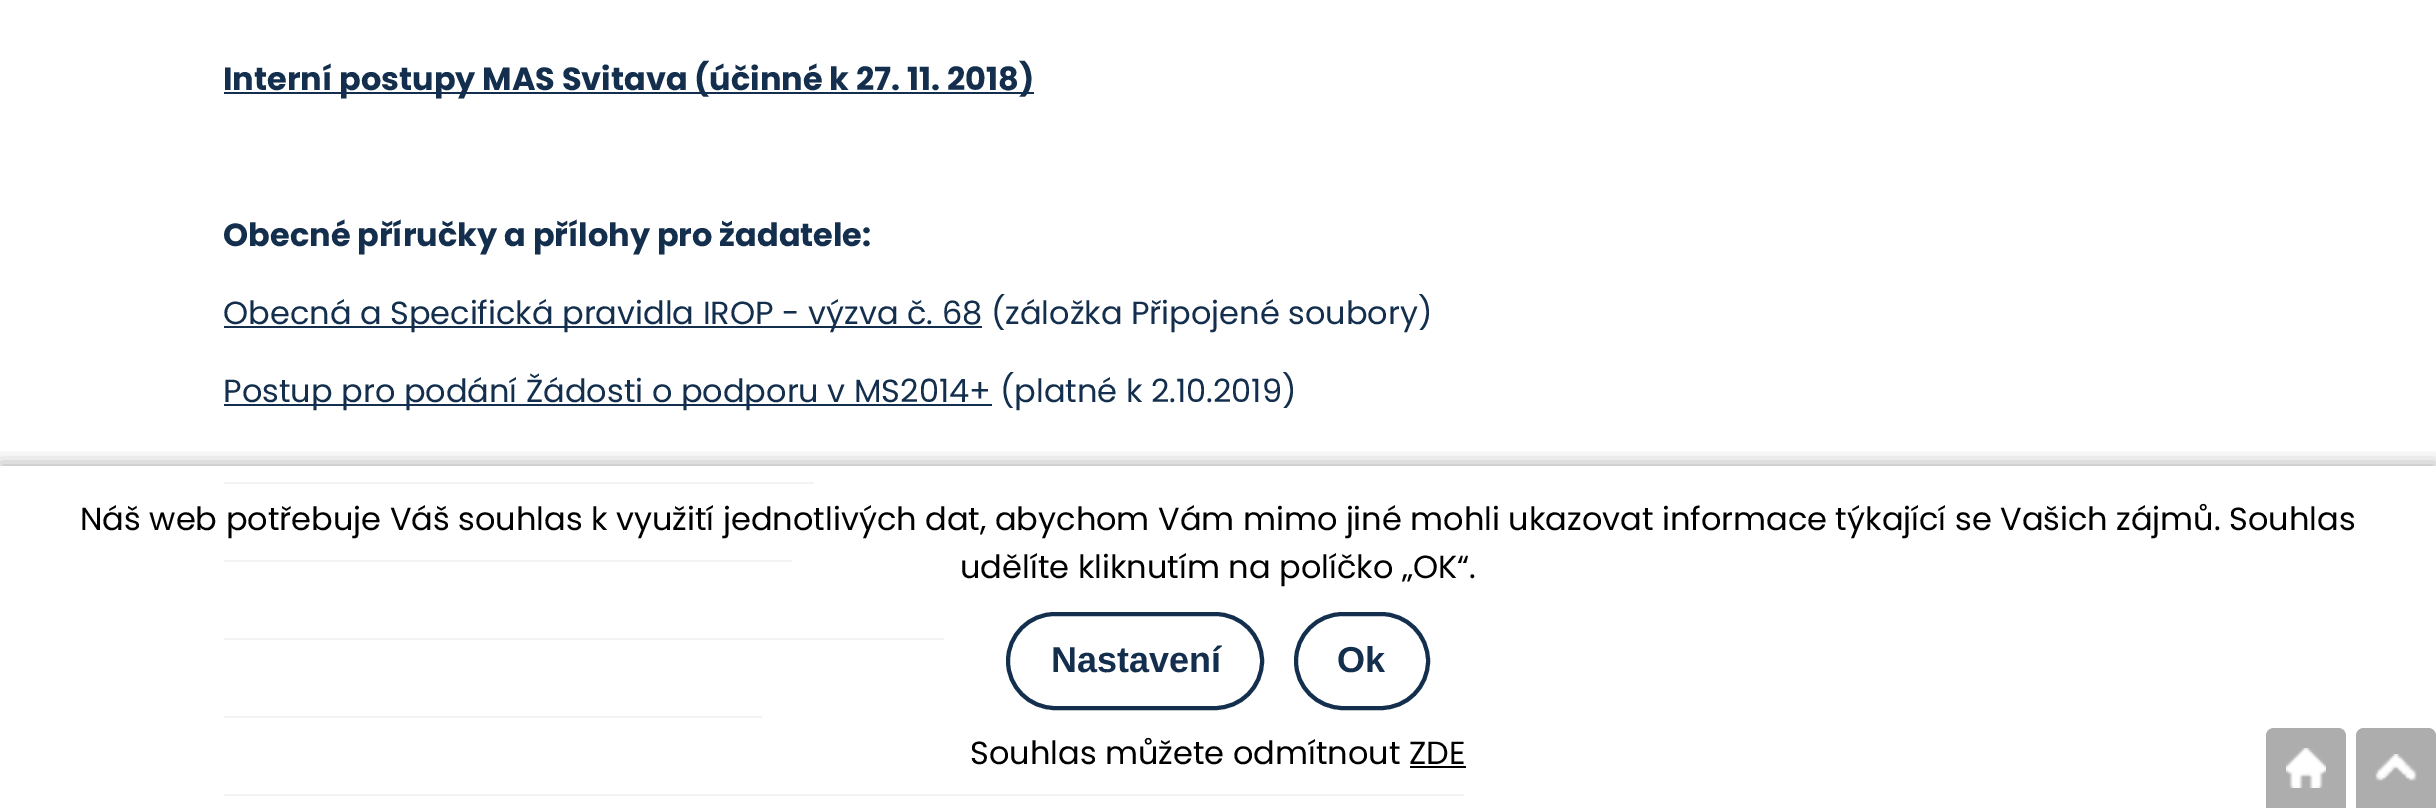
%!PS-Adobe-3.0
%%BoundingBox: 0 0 2436 808
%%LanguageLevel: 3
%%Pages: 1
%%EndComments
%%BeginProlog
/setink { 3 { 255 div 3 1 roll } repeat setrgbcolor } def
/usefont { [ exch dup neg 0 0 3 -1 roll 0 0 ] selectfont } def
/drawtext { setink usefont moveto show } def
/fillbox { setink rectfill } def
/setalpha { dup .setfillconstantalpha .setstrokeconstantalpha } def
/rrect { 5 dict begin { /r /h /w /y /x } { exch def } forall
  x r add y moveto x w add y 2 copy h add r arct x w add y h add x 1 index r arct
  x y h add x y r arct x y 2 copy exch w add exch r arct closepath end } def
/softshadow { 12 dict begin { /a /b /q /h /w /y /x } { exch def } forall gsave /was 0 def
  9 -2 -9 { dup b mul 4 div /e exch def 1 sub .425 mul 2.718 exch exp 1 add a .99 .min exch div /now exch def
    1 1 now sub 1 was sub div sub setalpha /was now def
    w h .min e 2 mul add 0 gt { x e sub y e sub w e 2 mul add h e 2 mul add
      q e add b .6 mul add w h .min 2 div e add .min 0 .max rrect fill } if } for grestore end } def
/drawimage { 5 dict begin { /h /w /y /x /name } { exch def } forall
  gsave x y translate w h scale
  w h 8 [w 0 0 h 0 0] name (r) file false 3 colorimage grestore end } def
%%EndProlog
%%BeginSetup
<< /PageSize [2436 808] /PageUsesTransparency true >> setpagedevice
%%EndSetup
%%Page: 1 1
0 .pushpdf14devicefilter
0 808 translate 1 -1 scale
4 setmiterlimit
0 0 2436 808 255 255 255 fillbox
224 92 810 2 19 47 77 fillbox
(Interní postupy MAS Svitava \(účinné k 27. 11. 2018\)) 223 90 /Poppins-Bold 32 19 47 77 drawtext
(Obecné příručky a přílohy pro žadatele:) 223 246 /Poppins-Bold 32 19 47 77 drawtext
224 326 758 2 19 47 77 fillbox
(Obecná a Specifická pravidla IROP - výzva č. 68 \(záložka Připojené soubory\)) 223 324 /Poppins-Regular 32 19 47 77 drawtext
224 404 768 2 19 47 77 fillbox
(Postup pro podání Žádosti o podporu v MS2014+ \(platné k 2.10.2019\)) 223 402 /Poppins-Regular 32 19 47 77 drawtext
224 482 590 2 19 47 77 fillbox
224 560 568 2 19 47 77 fillbox
224 638 720 2 19 47 77 fillbox
224 716 538 2 19 47 77 fillbox
224 794 1240 2 19 47 77 fillbox
gsave
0 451 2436 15 rectclip
0 0 0 setink
0 462 2436 342 0 8 0.25 softshadow
grestore
0.94 setalpha
224 482 1240 314 255 255 255 fillbox
1 setalpha
(Náš web potřebuje Váš souhlas k využití jednotlivých dat, abychom Vám mimo jiné mohli ukazovat informace týkající se Vašich zájmů. Souhlas) 80 530 /Poppins-Regular 32 0 0 0 drawtext
(udělíte kliknutím na políčko „OK“.) 960 578 /Poppins-Regular 32 0 0 0 drawtext
19 47 77 setink
4 setlinewidth
1008 614 254 94 47 rrect stroke
(Nastavení) 1051 672 /LiberationSans-Bold 36 19 47 77 drawtext
1296 614 132 94 47 rrect stroke
(Ok) 1337 672 /LiberationSans-Bold 36 19 47 77 drawtext
(Souhlas můžete odmítnout ZDE) 970 764 /Poppins-Regular 32 0 0 0 drawtext
1410 766 56 2 0 0 0 fillbox
173 173 173 setink
2274 728 moveto 2338 728 lineto 2342.5 728 2346 731.5 2346 736 curveto 2346 808 lineto 2266 808 lineto 2266 736 lineto 2266 731.5 2269.5 728 2274 728 curveto closepath fill
(assets/img1.rgb) 2286 748 40 40 drawimage
2364 728 moveto 2428 728 lineto 2432.5 728 2436 731.5 2436 736 curveto 2436 808 lineto 2356 808 lineto 2356 736 lineto 2356 731.5 2359.5 728 2364 728 curveto closepath fill
(assets/img2.rgb) 2375 754 42 27 drawimage
.poppdf14devicefilter showpage
%%EOF
